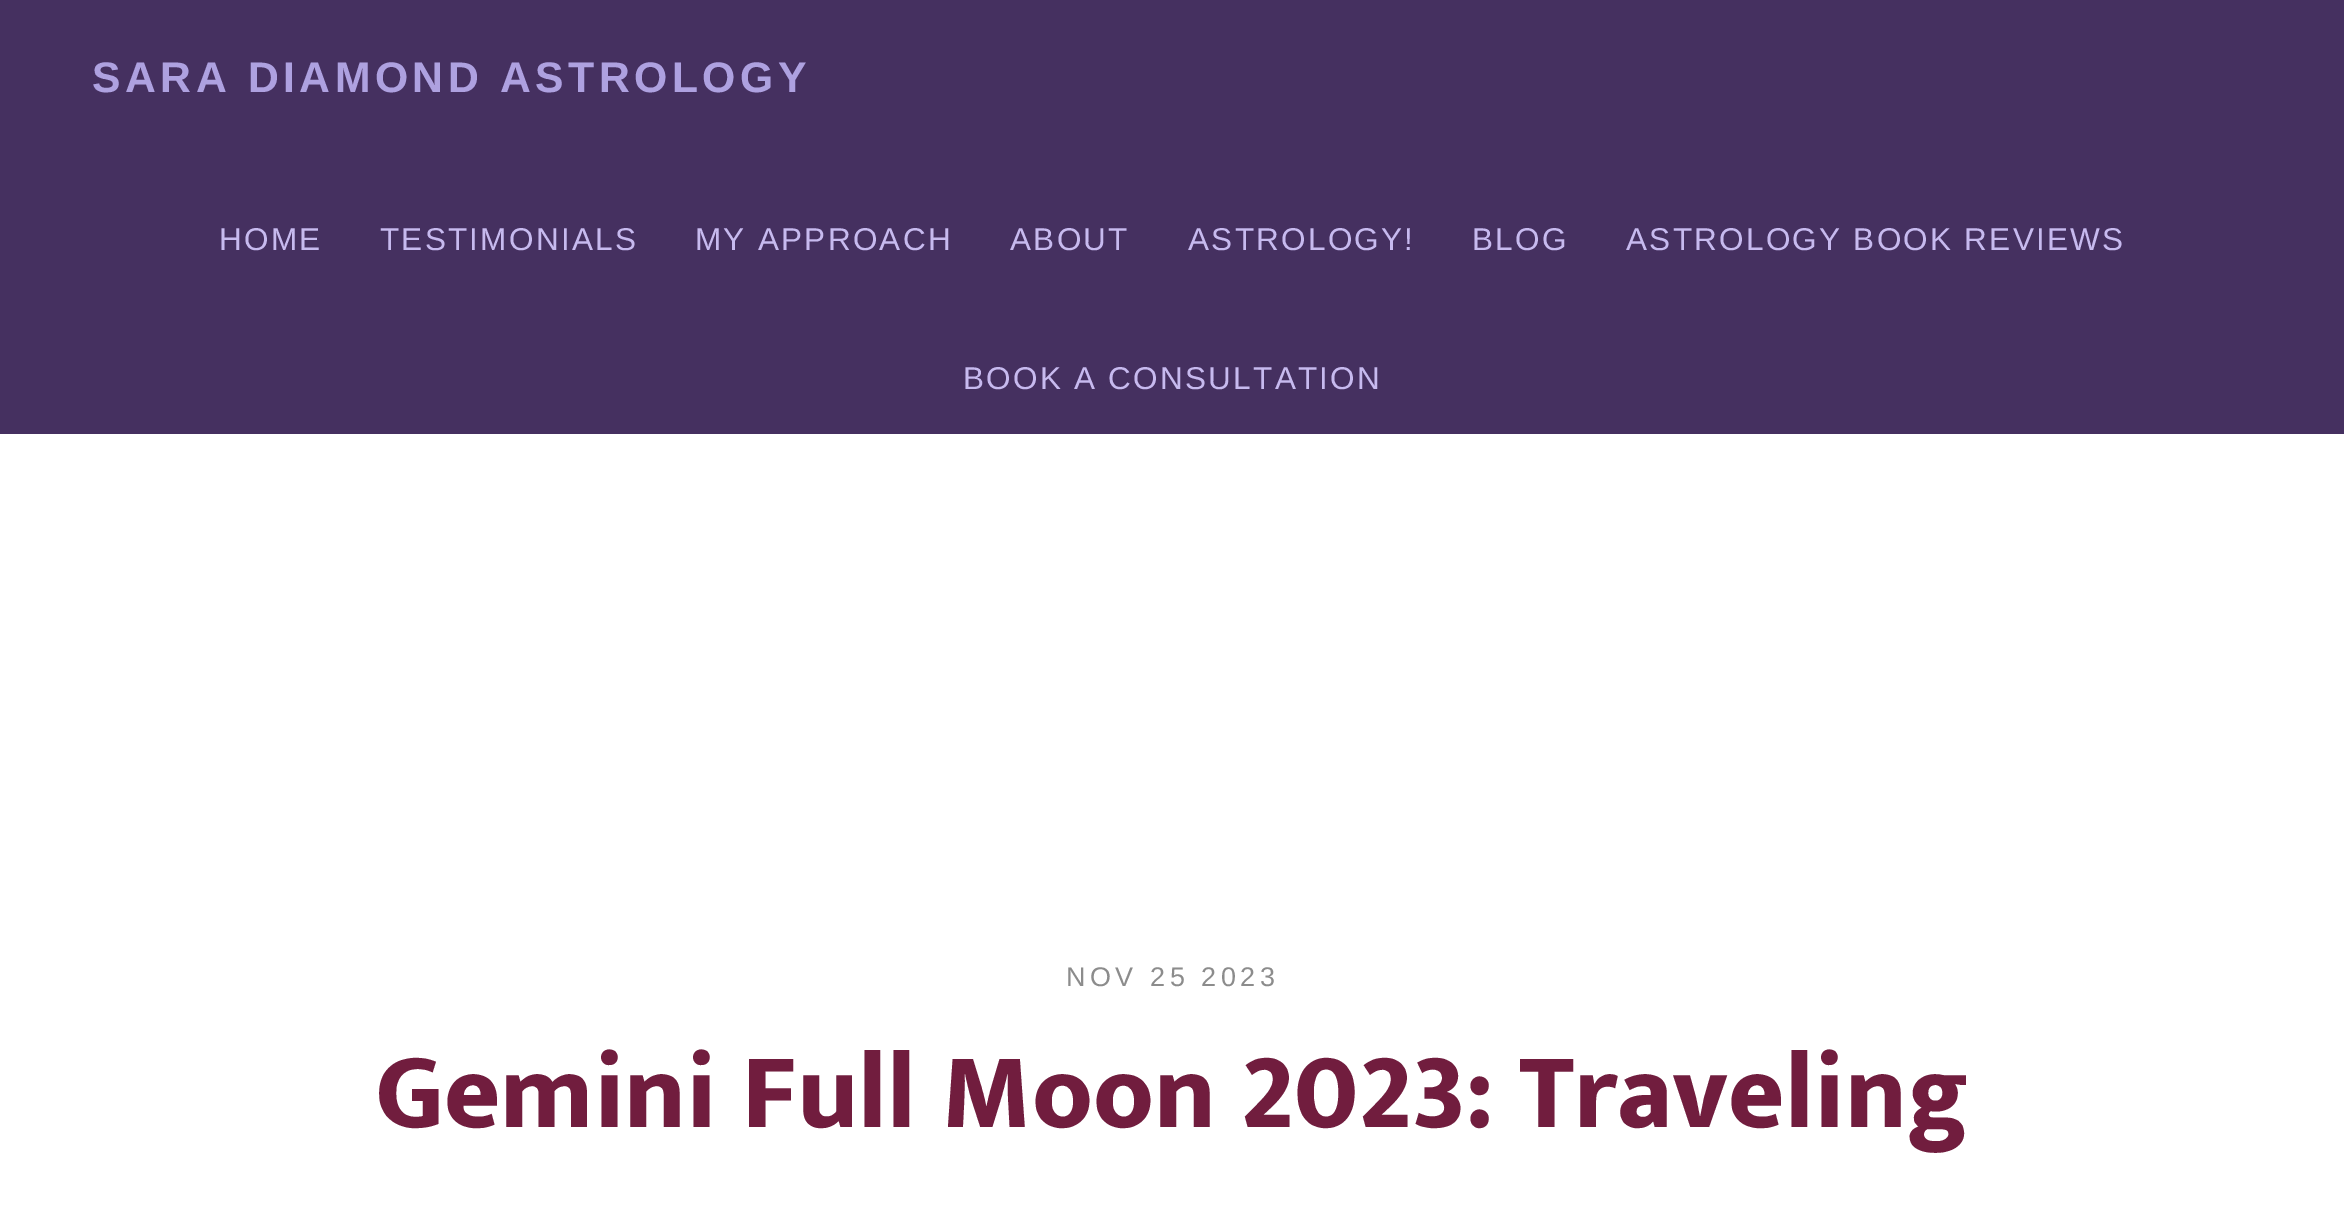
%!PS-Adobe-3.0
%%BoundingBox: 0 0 2344 1223
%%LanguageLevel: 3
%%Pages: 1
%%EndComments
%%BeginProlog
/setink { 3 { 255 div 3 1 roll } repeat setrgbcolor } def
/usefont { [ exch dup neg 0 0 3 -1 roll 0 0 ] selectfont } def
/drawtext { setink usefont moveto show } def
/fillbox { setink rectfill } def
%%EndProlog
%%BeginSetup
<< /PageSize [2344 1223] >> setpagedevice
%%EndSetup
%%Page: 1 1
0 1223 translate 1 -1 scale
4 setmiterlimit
0 0 2344 1223 255 255 255 fillbox
0 0 2344 434 69 48 96 fillbox
/LiberationSans-Bold 42.75 usefont
174 161 224 setink
92 92 moveto 4.5 0 (SARA DIAMOND ASTROLOGY) ashow
/LiberationSans-Regular 31.5 usefont
199 186 239 setink
219 250 moveto 2.25 0 (HOME) ashow
380 250 moveto 2.25 0 (TESTIMONIALS) ashow
695 250 moveto 2.25 0 (MY APPROACH) ashow
1010 250 moveto 2.25 0 (ABOUT) ashow
1188 250 moveto 2.25 0 (ASTROLOGY!) ashow
1472 250 moveto 2.25 0 (BLOG) ashow
1626 250 moveto 2.25 0 (ASTROLOGY BOOK REVIEWS) ashow
963 389 moveto 2.25 0 (BOOK A CONSULTATION) ashow
/LiberationSans-Regular 27 usefont
140 140 140 setink
1066 986 moveto 4.5 0 (NOV 25 2023) ashow
(Gemini Full Moon 2023: Traveling) 375 1127 /EkMukta-ExtraBold 108 113 29 62 drawtext
showpage
%%EOF
